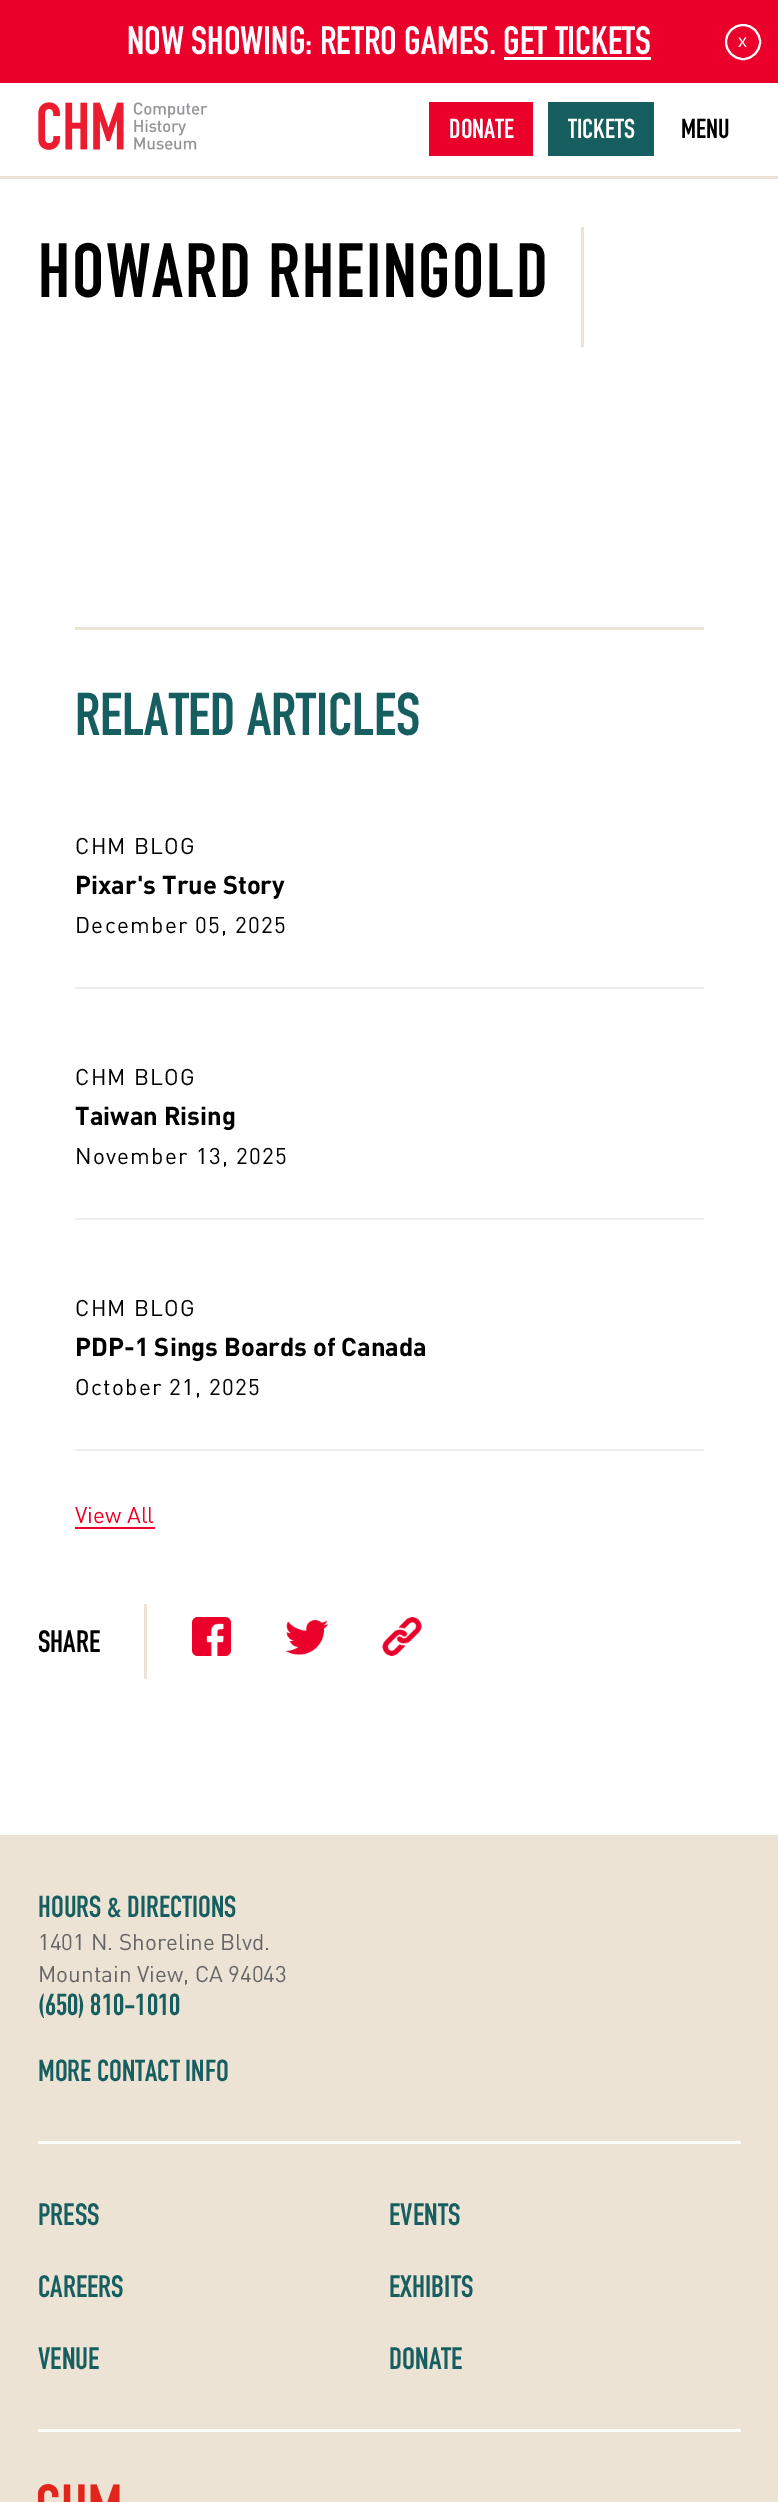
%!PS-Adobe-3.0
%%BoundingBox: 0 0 778 2502
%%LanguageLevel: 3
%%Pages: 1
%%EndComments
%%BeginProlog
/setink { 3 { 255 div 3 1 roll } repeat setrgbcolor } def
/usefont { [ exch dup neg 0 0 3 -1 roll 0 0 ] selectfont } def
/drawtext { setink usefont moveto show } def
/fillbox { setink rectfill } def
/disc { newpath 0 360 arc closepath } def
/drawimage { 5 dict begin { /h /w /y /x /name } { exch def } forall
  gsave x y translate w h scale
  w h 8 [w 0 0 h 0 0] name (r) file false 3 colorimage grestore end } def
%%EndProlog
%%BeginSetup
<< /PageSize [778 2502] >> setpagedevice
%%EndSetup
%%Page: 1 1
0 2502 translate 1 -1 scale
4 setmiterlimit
0 0 778 2502 255 255 255 fillbox
0 0 778 83 234 0 42 fillbox
(NOW SHOWING: RETRO GAMES. GET TICKETS) 127 54 /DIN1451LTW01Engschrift-Regular 39 255 255 255 drawtext
504 57 147 3 255 255 255 fillbox
2 setlinewidth
743 42 17 disc stroke
(x) 738 47 /LiberationSans-Regular 18 255 255 255 drawtext
0 176 778 3 237 227 213 fillbox
(assets/img1.rgb) 38 102 170 48 drawimage
429 102 104 54 234 0 42 fillbox
(DONATE) 449 138 /DIN1451LTW01Engschrift-Regular 27 255 255 255 drawtext
548 102 106 54 23 94 97 fillbox
(TICKETS) 568 138 /DIN1451LTW01Engschrift-Regular 27 255 255 255 drawtext
(MENU) 681 138 /DIN1451LTW01Engschrift-Regular 27 0 0 0 drawtext
/DIN1451LTW01Engschrift-Regular 75.5 usefont
38 297 moveto 1.75 0 (HOWARD RHEINGOLD) ashow
581 227 3 120 237 227 213 fillbox
75 627 629 3 237 227 213 fillbox
(RELATED ARTICLES) 75 735 /DIN1451LTW01Engschrift-Regular 59.5 23 94 97 drawtext
75 987 629 2 237 237 237 fillbox
/DIN-Regular 22.5 usefont
0 0 0 setink
75 854 moveto 1.25 0 (CHM BLOG) ashow
(Pixar's True Story) 75 894 /DIN-Bold 25.5 0 0 0 drawtext
/DIN-Regular 22.5 usefont
75 933 moveto 1.25 0 (December 05, 2025) ashow
75 1218 629 2 237 237 237 fillbox
0 0 0 setink
75 1085 moveto 1.25 0 (CHM BLOG) ashow
(Taiwan Rising) 75 1125 /DIN-Bold 25.5 0 0 0 drawtext
/DIN-Regular 22.5 usefont
75 1164 moveto 1.25 0 (November 13, 2025) ashow
75 1449 629 2 237 237 237 fillbox
0 0 0 setink
75 1316 moveto 1.25 0 (CHM BLOG) ashow
(PDP-1 Sings Boards of Canada) 75 1356 /DIN-Bold 25.5 0 0 0 drawtext
/DIN-Regular 22.5 usefont
75 1395 moveto 1.25 0 (October 21, 2025) ashow
75 1527 80 2 234 0 42 fillbox
(View All) 75 1523 /DIN-Regular 22.5 234 0 42 drawtext
144 1604 3 75 237 227 213 fillbox
(SHARE) 38 1652 /DIN1451LTW01Engschrift-Regular 30.5 0 0 0 drawtext
(assets/img2.rgb) 192 1617 39 39 drawimage
(assets/img3.rgb) 285 1620 44 35 drawimage
(assets/img4.rgb) 382 1617 40 39 drawimage
0 1835 778 667 237 227 213 fillbox
38 2141 703 3 255 255 255 fillbox
(HOURS & DIRECTIONS) 38 1917 /DIN1451LTW01Engschrift-Regular 30 23 94 97 drawtext
(1401 N. Shoreline Blvd.) 38 1950 /DIN-Regular 22.5 102 102 102 drawtext
(Mountain View, CA 94043) 38 1982 /DIN-Regular 22.5 102 102 102 drawtext
(\(650\) 810-1010) 38 2015 /DIN1451LTW01Engschrift-Regular 30 23 94 97 drawtext
(MORE CONTACT INFO) 38 2081 /DIN1451LTW01Engschrift-Regular 30 23 94 97 drawtext
38 2429 703 3 255 255 255 fillbox
(PRESS) 38 2225 /DIN1451LTW01Engschrift-Regular 30.5 23 94 97 drawtext
(CAREERS) 38 2297 /DIN1451LTW01Engschrift-Regular 30.5 23 94 97 drawtext
(VENUE) 38 2369 /DIN1451LTW01Engschrift-Regular 30.5 23 94 97 drawtext
(EVENTS) 389 2225 /DIN1451LTW01Engschrift-Regular 30.5 23 94 97 drawtext
(EXHIBITS) 389 2297 /DIN1451LTW01Engschrift-Regular 30.5 23 94 97 drawtext
(DONATE) 389 2369 /DIN1451LTW01Engschrift-Regular 30.5 23 94 97 drawtext
(assets/img5.rgb) 38 2484 82 18 drawimage
showpage
%%EOF
